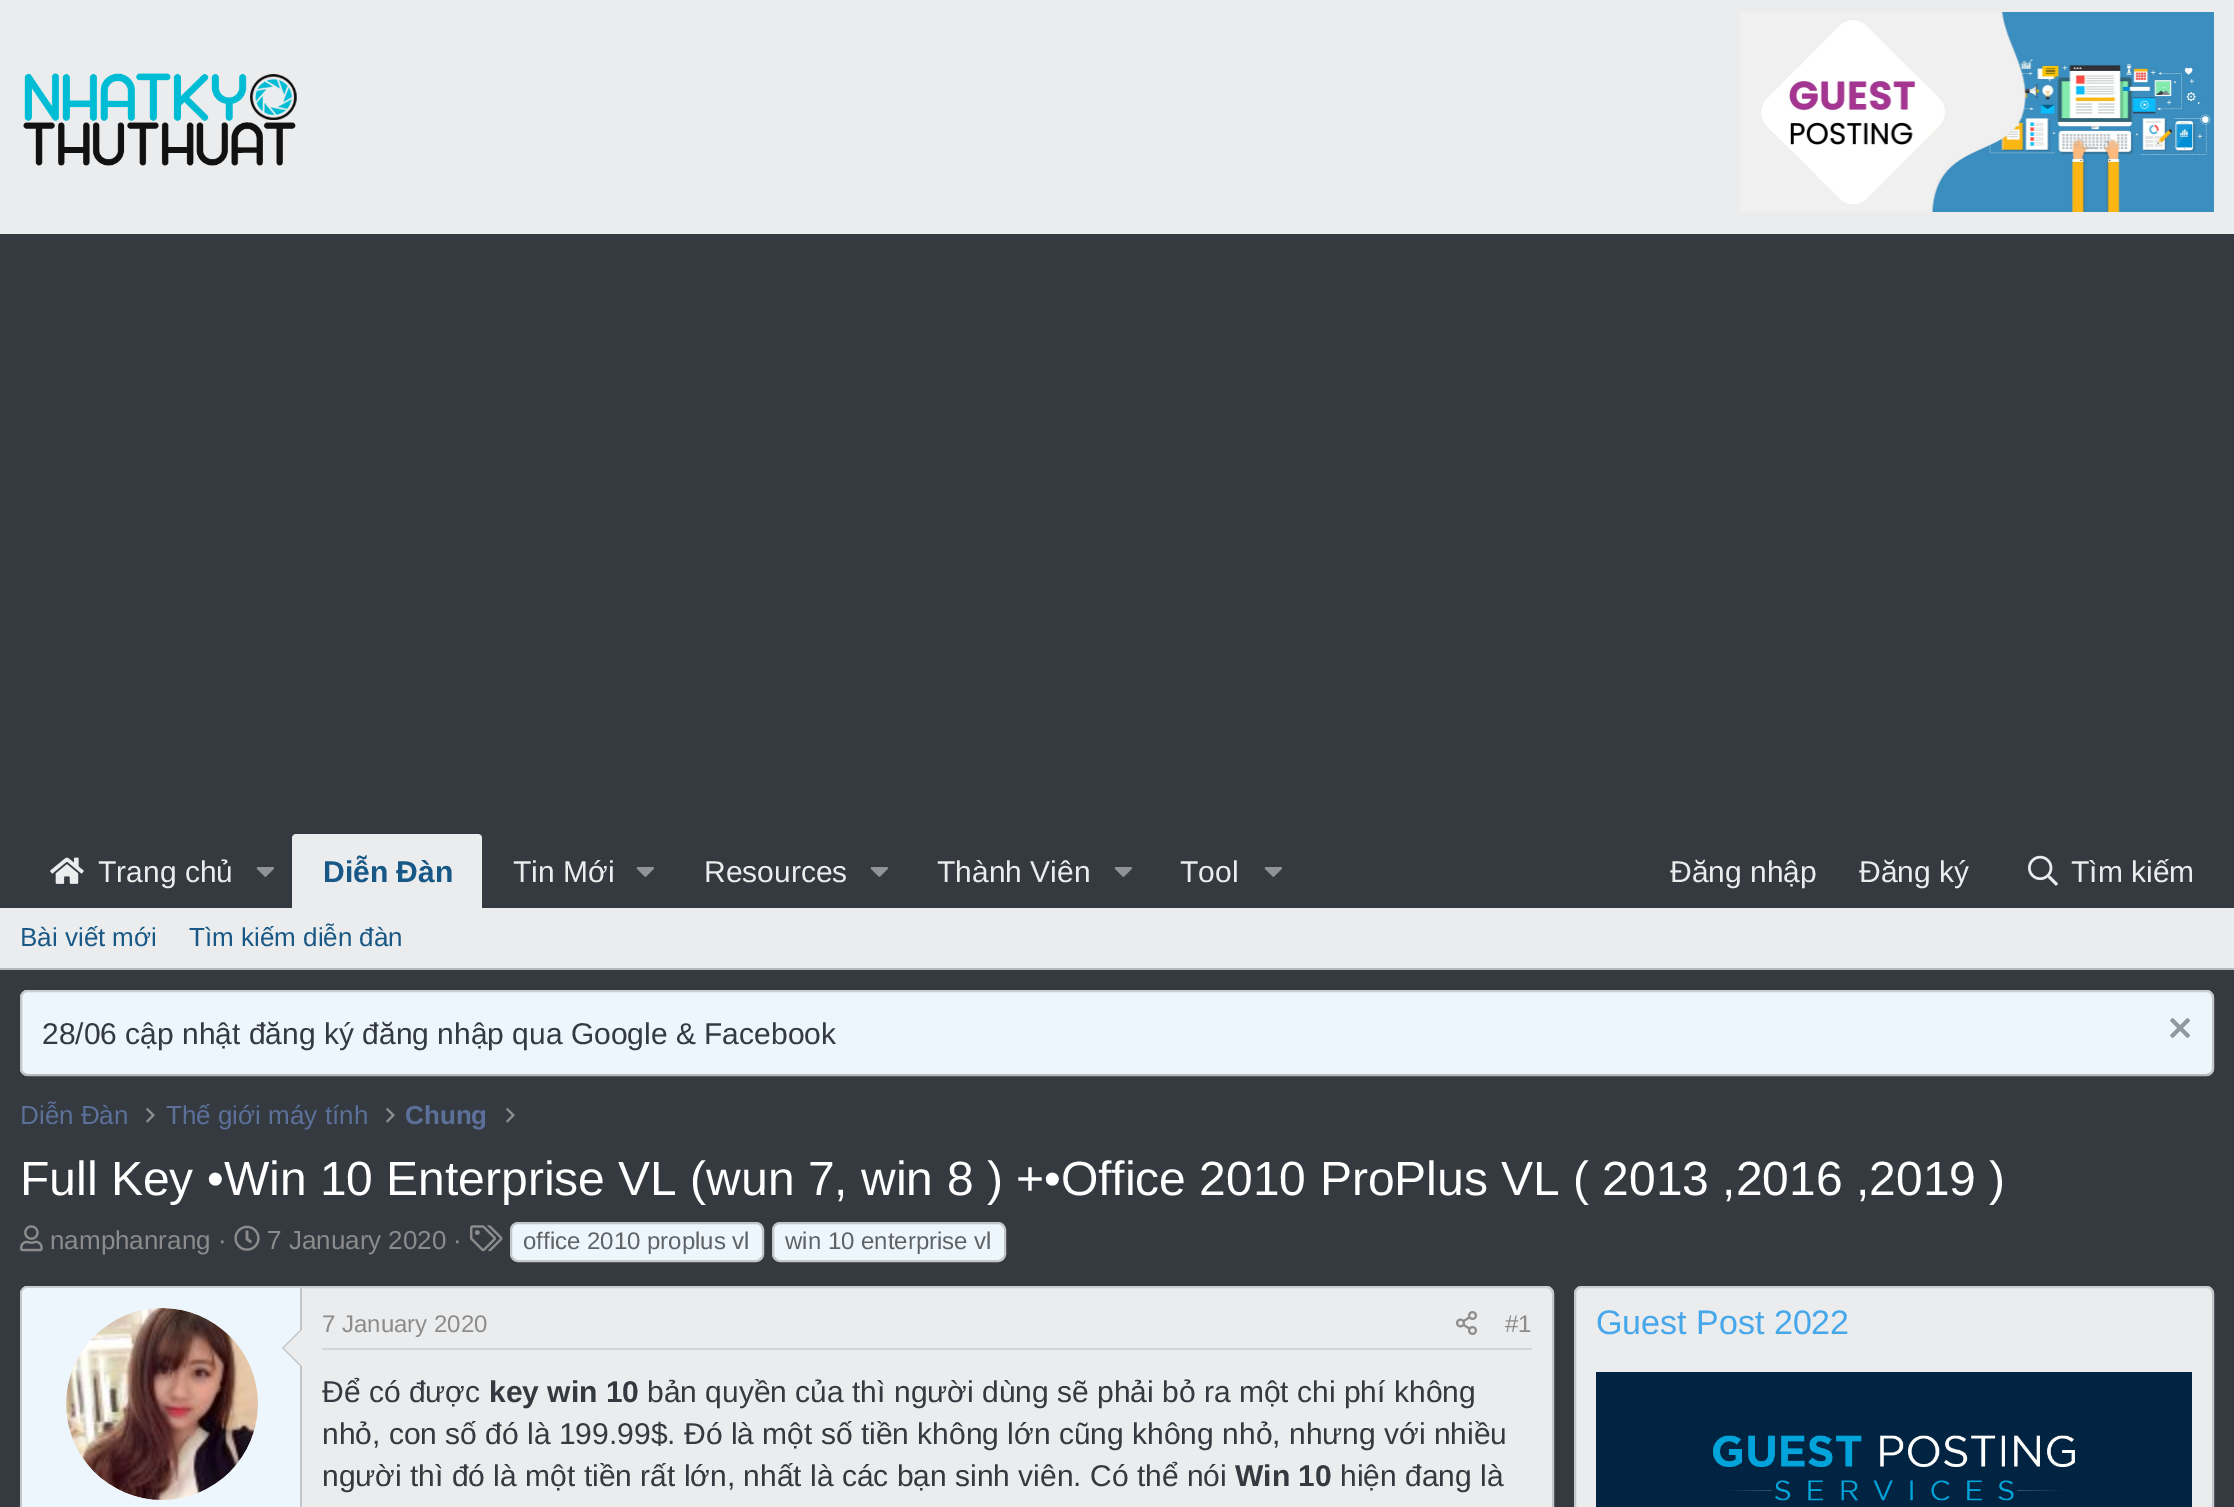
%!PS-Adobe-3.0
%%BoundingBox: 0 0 2234 1507
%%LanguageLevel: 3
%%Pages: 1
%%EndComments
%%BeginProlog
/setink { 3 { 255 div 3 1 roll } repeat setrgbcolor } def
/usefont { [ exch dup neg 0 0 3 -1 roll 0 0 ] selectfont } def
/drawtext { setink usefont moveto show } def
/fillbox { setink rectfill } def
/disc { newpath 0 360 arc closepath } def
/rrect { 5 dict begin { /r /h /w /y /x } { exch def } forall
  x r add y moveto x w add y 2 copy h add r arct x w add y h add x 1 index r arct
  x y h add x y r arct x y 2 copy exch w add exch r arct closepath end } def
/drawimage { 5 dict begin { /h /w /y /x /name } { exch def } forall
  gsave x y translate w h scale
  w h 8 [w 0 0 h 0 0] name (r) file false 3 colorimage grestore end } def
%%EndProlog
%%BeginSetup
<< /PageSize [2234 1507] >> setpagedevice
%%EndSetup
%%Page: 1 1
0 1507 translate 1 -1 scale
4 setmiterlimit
0 0 2234 1507 52 58 64 fillbox
0 0 2234 234 235 236 237 fillbox
(assets/img1.rgb) 23 73 274 93 drawimage
(assets/img2.rgb) 1740 12 474 200 drawimage
(assets/img3.rgb) 50 857 34 27 drawimage
(Trang chủ) 98 882 /LiberationSans-Regular 30 235 236 237 drawtext
(assets/img4.rgb) 256 867 18 10 drawimage
296 834 moveto 478 834 lineto 480 834 482 836 482 838 curveto 482 908 lineto 292 908 lineto 292 838 lineto 292 836 294 834 296 834 curveto closepath fill
(Diễn Đàn) 323 882 /LiberationSans-Bold 30 24 88 134 drawtext
(Tin Mới) 513 882 /LiberationSans-Regular 30 235 236 237 drawtext
(assets/img4.rgb) 636 867 18 10 drawimage
(Resources) 704 882 /LiberationSans-Regular 30 235 236 237 drawtext
(assets/img4.rgb) 870 867 18 10 drawimage
(Thành Viên) 937 882 /LiberationSans-Regular 30 235 236 237 drawtext
(assets/img4.rgb) 1114 867 18 10 drawimage
(Tool) 1180 882 /LiberationSans-Regular 30 235 236 237 drawtext
(assets/img4.rgb) 1264 867 18 10 drawimage
(Đăng nhập) 1670 882 /LiberationSans-Regular 30 235 236 237 drawtext
(Đăng ký) 1859 882 /LiberationSans-Regular 30 235 236 237 drawtext
(assets/img5.rgb) 2028 855 30 31 drawimage
(Tìm kiếm) 2071 882 /LiberationSans-Regular 30 235 236 237 drawtext
0 908 2234 60 235 236 237 fillbox
0 968 2234 2 181 185 189 fillbox
(Bài viết mới) 20 946 /LiberationSans-Regular 26 24 88 134 drawtext
(Tìm kiếm diễn đàn) 189 946 /LiberationSans-Regular 26 24 88 134 drawtext
237 246 253 setink
20 990 2194 86 8 rrect fill
203 205 208 setink
2 setlinewidth
23 993 moveto 24.5 991.5 26 991 28 991 curveto 2206 991 lineto 2208 991 2209.5 991.5 2211 993 curveto stroke
195 198 201 setink
2211 993 moveto 2212.5 994.5 2213 996 2213 998 curveto 2213 1068 lineto 2213 1070 2212.5 1071.5 2211 1073 curveto stroke
181 185 189 setink
2211 1073 moveto 2209.5 1074.5 2208 1075 2206 1075 curveto 28 1075 lineto 26 1075 24.5 1074.5 23 1073 curveto stroke
195 198 201 setink
23 1073 moveto 21.5 1071.5 21 1070 21 1068 curveto 21 998 lineto 21 996 21.5 994.5 23 993 curveto stroke
(28/06 cập nhật đăng ký đăng nhập qua Google & Facebook) 42 1044 /LiberationSans-Regular 30 52 58 64 drawtext
(assets/img6.rgb) 2170 1018 21 20 drawimage
(Diễn Đàn) 20 1124 /LiberationSans-Regular 26 92 112 153 drawtext
(assets/img7.rgb) 146 1108 9 15 drawimage
(Thế giới máy tính) 166 1124 /LiberationSans-Regular 26 92 112 153 drawtext
(assets/img7.rgb) 386 1108 9 15 drawimage
(Chung) 405 1124 /LiberationSans-Bold 26 92 112 153 drawtext
(assets/img7.rgb) 506 1108 9 15 drawimage
(Full Key •Win 10 Enterprise VL \(wun 7, win 8 \) +•Office 2010 ProPlus VL \( 2013 ,2016 ,2019 \)) 20 1195 /LiberationSans-Regular 48 255 255 255 drawtext
(assets/img8.rgb) 20 1225 23 27 drawimage
(namphanrang ·) 50 1249 /LiberationSans-Regular 26 140 140 140 drawtext
(assets/img9.rgb) 234 1225 26 26 drawimage
(7 January 2020 ·) 267 1249 /LiberationSans-Regular 26 140 140 140 drawtext
(assets/img10.rgb) 470 1225 33 27 drawimage
237 246 253 setink
511 1223 252 38 7 rrect gsave fill grestore
195 198 201 setink
stroke
(office 2010 proplus vl) 523 1249 /LiberationSans-Regular 24 96 99 102 drawtext
237 246 253 setink
773 1223 232 38 7 rrect gsave fill grestore
195 198 201 setink
stroke
(win 10 enterprise vl) 785 1249 /LiberationSans-Regular 24 96 99 102 drawtext
235 236 237 setink
20 1286 1534 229 8 rrect fill
203 205 208 setink
23 1289 moveto 24.5 1287.5 26 1287 28 1287 curveto 1546 1287 lineto 1548 1287 1549.5 1287.5 1551 1289 curveto stroke
195 198 201 setink
1551 1289 moveto 1552.5 1290.5 1553 1292 1553 1294 curveto 1553 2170 lineto 1553 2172 1552.5 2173.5 1551 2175 curveto stroke
23 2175 moveto 21.5 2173.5 21 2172 21 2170 curveto 21 1294 lineto 21 1292 21.5 1290.5 23 1289 curveto stroke
237 246 253 setink
28 1288 moveto 302 1288 lineto 302 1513 lineto 28 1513 lineto 24.5 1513 22 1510.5 22 1507 curveto 22 1294 lineto 22 1290.5 24.5 1288 28 1288 curveto closepath fill
300 1288 2 219 195 198 201 fillbox
235 236 237 setink
162 1404 96 disc fill
(assets/img11.rgb) 66 1308 192 192 drawimage
195 198 201 setink
302 1328 moveto 302 1368 lineto 282 1348 lineto closepath fill
235 236 237 setink
302 1330 moveto 302 1366 lineto 284 1348 lineto closepath fill
322 1348 1210 2 211 213 215 fillbox
(7 January 2020) 322 1332 /LiberationSans-Regular 24 140 140 140 drawtext
(assets/img12.rgb) 1456 1311 21 24 drawimage
(#1) 1505 1332 /LiberationSans-Regular 24 140 140 140 drawtext
(Để có được) 322 1402 /LiberationSans-Regular 30 52 58 64 drawtext
(key win 10) 489 1402 /LiberationSans-Bold 30 52 58 64 drawtext
(bản quyền của thì người dùng sẽ phải bỏ ra một chi phí không) 647 1402 /LiberationSans-Regular 30 52 58 64 drawtext
(nhỏ, con số đó là 199.99$. Đó là một số tiền không lớn cũng không nhỏ, nhưng với nhiều) 322 1444 /LiberationSans-Regular 30 52 58 64 drawtext
(người thì đó là một tiền rất lớn, nhất là các bạn sinh viên. Có thể nói) 322 1486 /LiberationSans-Regular 30 52 58 64 drawtext
(Win 10) 1235 1486 /LiberationSans-Bold 30 52 58 64 drawtext
(hiện đang là) 1340 1486 /LiberationSans-Regular 30 52 58 64 drawtext
235 236 237 setink
1574 1286 640 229 8 rrect fill
203 205 208 setink
1577 1289 moveto 1578.5 1287.5 1580 1287 1582 1287 curveto 2206 1287 lineto 2208 1287 2209.5 1287.5 2211 1289 curveto stroke
195 198 201 setink
2211 1289 moveto 2212.5 1290.5 2213 1292 2213 1294 curveto 2213 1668 lineto 2213 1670 2212.5 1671.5 2211 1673 curveto stroke
1577 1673 moveto 1575.5 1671.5 1575 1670 1575 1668 curveto 1575 1294 lineto 1575 1292 1575.5 1290.5 1577 1289 curveto stroke
(Guest Post 2022) 1596 1334 /LiberationSans-Regular 34 71 167 235 drawtext
(assets/img13.rgb) 1596 1372 596 135 drawimage
showpage
%%EOF
